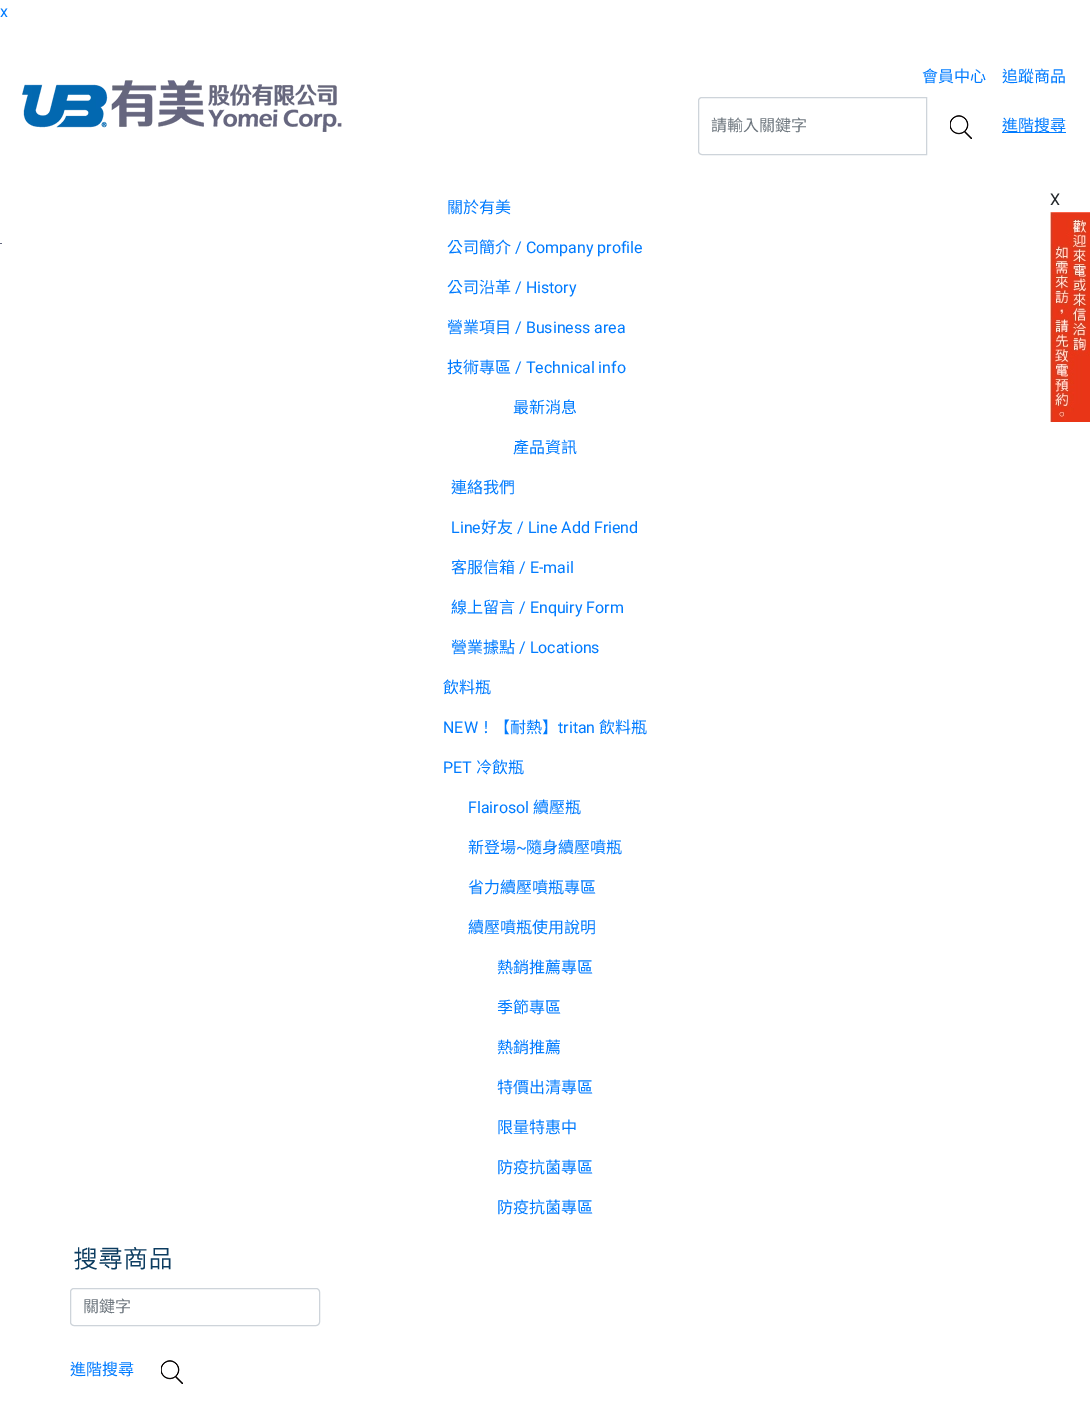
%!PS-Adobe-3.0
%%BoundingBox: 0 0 1090 1427
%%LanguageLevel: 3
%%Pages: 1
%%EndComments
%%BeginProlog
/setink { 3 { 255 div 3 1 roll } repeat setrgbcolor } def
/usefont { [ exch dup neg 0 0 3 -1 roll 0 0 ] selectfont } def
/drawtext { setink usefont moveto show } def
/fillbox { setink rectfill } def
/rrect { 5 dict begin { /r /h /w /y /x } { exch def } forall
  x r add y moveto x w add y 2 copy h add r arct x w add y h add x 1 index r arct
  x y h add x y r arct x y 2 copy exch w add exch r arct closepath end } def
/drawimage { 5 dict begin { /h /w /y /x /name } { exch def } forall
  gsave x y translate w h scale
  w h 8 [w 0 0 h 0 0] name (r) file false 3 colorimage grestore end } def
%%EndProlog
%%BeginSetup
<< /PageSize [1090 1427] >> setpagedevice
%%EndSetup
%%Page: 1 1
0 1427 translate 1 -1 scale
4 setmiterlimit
0 0 1090 1427 255 255 255 fillbox
(x) 0 17 /Roboto-Regular 16 0 123 255 drawtext
(assets/img1.rgb) 22 80 320 52 drawimage
(會員中心) 922 82 /NotoSansCJKTC-Regular 16 0 123 255 drawtext
(追蹤商品) 1002 82 /NotoSansCJKTC-Regular 16 0 123 255 drawtext
206 212 218 setink
702 97.5 moveto 926.5 97.5 lineto 926.5 154.5 lineto 702 154.5 lineto 700 154.5 698.5 153 698.5 151 curveto 698.5 101 lineto 698.5 99 700 97.5 702 97.5 curveto closepath stroke
(請輸入關鍵字) 711 131 /NotoSansCJKTC-Regular 16 108 117 125 drawtext
(assets/img2.rgb) 950 115 22 24 drawimage
1002 132 64 1 0 123 255 fillbox
(進階搜尋) 1002 131 /NotoSansCJKTC-Regular 16 0 123 255 drawtext
0 243 2 1 99 103 125 fillbox
(關於有美) 447 213 /NotoSansCJKTC-Regular 16 0 123 255 drawtext
(公司簡介) 447 253 /NotoSansCJKTC-Regular 16 0 123 255 drawtext
(/ Company profile) 515 253 /Roboto-Regular 16 0 123 255 drawtext
(公司沿革) 447 293 /NotoSansCJKTC-Regular 16 0 123 255 drawtext
(/ History) 515 293 /Roboto-Regular 16 0 123 255 drawtext
(營業項目) 447 333 /NotoSansCJKTC-Regular 16 0 123 255 drawtext
(/ Business area) 515 333 /Roboto-Regular 16 0 123 255 drawtext
(技術專區) 447 373 /NotoSansCJKTC-Regular 16 0 123 255 drawtext
(/ Technical info) 515 373 /Roboto-Regular 16 0 123 255 drawtext
(最新消息) 513 413 /NotoSansCJKTC-Regular 16 0 123 255 drawtext
(產品資訊) 513 453 /NotoSansCJKTC-Regular 16 0 123 255 drawtext
(連絡我們) 451 493 /NotoSansCJKTC-Regular 16 0 123 255 drawtext
(Line) 451 533 /Roboto-Regular 16 0 123 255 drawtext
(好友) 481 533 /NotoSansCJKTC-Regular 16 0 123 255 drawtext
(/ Line Add Friend) 517 533 /Roboto-Regular 16 0 123 255 drawtext
(客服信箱) 451 573 /NotoSansCJKTC-Regular 16 0 123 255 drawtext
(/ E-mail) 519 573 /Roboto-Regular 16 0 123 255 drawtext
(線上留言) 451 613 /NotoSansCJKTC-Regular 16 0 123 255 drawtext
(/ Enquiry Form) 519 613 /Roboto-Regular 16 0 123 255 drawtext
(營業據點) 451 653 /NotoSansCJKTC-Regular 16 0 123 255 drawtext
(/ Locations) 519 653 /Roboto-Regular 16 0 123 255 drawtext
(飲料瓶) 443 693 /NotoSansCJKTC-Regular 16 0 123 255 drawtext
(NEW) 443 733 /Roboto-Regular 16 0 123 255 drawtext
(！【耐熱】) 478 733 /NotoSansCJKTC-Regular 16 0 123 255 drawtext
(tritan) 558 733 /Roboto-Regular 16 0 123 255 drawtext
(飲料瓶) 599 733 /NotoSansCJKTC-Regular 16 0 123 255 drawtext
(PET) 443 773 /Roboto-Regular 16 0 123 255 drawtext
(冷飲瓶) 476 773 /NotoSansCJKTC-Regular 16 0 123 255 drawtext
(Flairosol) 468 813 /Roboto-Regular 16 0 123 255 drawtext
(續壓瓶) 533 813 /NotoSansCJKTC-Regular 16 0 123 255 drawtext
(新登場) 468 853 /NotoSansCJKTC-Regular 16 0 123 255 drawtext
(~) 516 853 /Roboto-Regular 16 0 123 255 drawtext
(隨身續壓噴瓶) 526 853 /NotoSansCJKTC-Regular 16 0 123 255 drawtext
(省力續壓噴瓶專區) 468 893 /NotoSansCJKTC-Regular 16 0 123 255 drawtext
(續壓噴瓶使用說明) 468 933 /NotoSansCJKTC-Regular 16 0 123 255 drawtext
(熱銷推薦專區) 497 973 /NotoSansCJKTC-Regular 16 0 123 255 drawtext
(季節專區) 497 1013 /NotoSansCJKTC-Regular 16 0 123 255 drawtext
(熱銷推薦) 497 1053 /NotoSansCJKTC-Regular 16 0 123 255 drawtext
(特價出清專區) 497 1093 /NotoSansCJKTC-Regular 16 0 123 255 drawtext
(限量特惠中) 497 1133 /NotoSansCJKTC-Regular 16 0 123 255 drawtext
(防疫抗菌專區) 497 1173 /NotoSansCJKTC-Regular 16 0 123 255 drawtext
(防疫抗菌專區) 497 1213 /NotoSansCJKTC-Regular 16 0 123 255 drawtext
(X) 1050 205 /Roboto-Regular 16 33 37 41 drawtext
(assets/img3.rgb) 1050 212 40 210 drawimage
(assets/img4.rgb) 74 1247 97 23 drawimage
206 212 218 setink
70.5 1288.5 249 37 3.5 rrect stroke
(關鍵字) 83 1312 /NotoSansCJKTC-Regular 16 108 117 125 drawtext
(進階搜尋) 70 1375 /NotoSansCJKTC-Regular 16 0 123 255 drawtext
(assets/img2.rgb) 161 1360 22 24 drawimage
showpage
%%EOF
